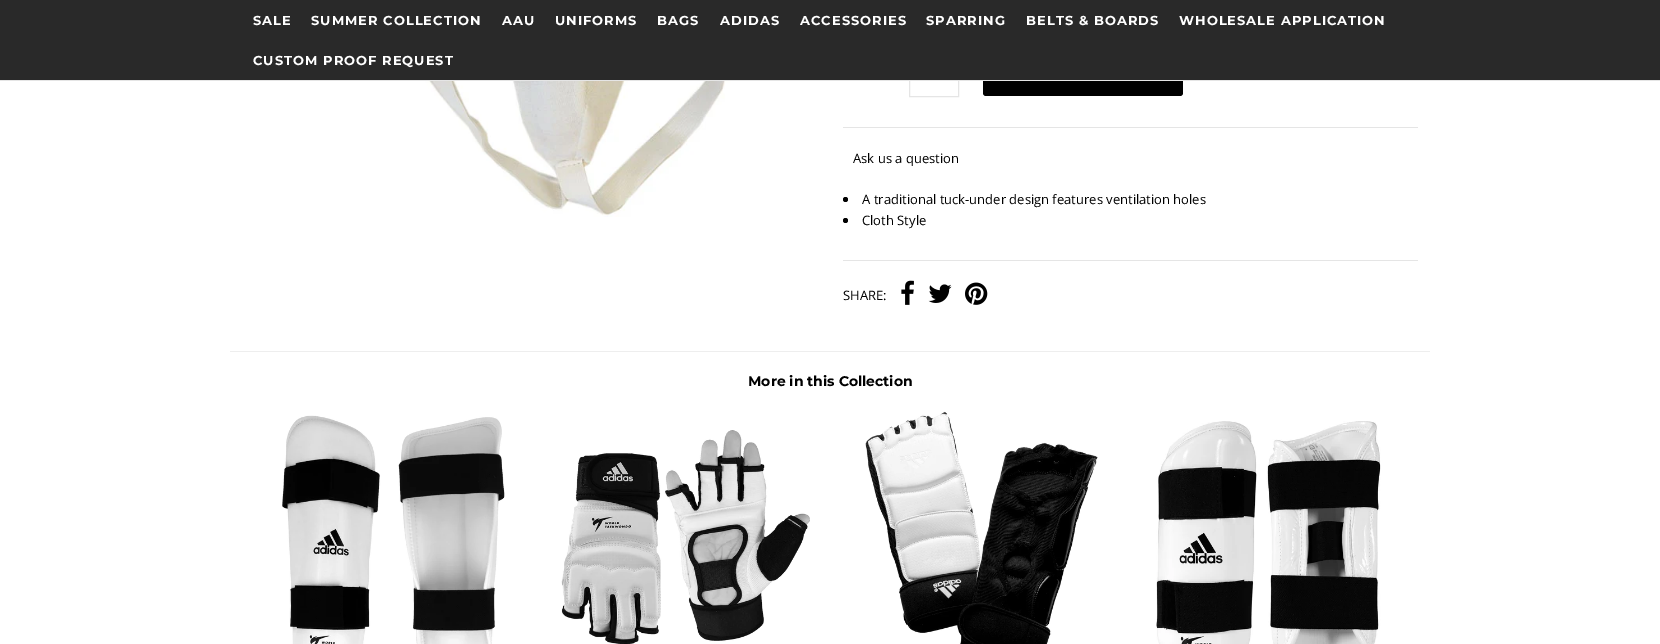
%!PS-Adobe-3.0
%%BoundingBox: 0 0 1660 644
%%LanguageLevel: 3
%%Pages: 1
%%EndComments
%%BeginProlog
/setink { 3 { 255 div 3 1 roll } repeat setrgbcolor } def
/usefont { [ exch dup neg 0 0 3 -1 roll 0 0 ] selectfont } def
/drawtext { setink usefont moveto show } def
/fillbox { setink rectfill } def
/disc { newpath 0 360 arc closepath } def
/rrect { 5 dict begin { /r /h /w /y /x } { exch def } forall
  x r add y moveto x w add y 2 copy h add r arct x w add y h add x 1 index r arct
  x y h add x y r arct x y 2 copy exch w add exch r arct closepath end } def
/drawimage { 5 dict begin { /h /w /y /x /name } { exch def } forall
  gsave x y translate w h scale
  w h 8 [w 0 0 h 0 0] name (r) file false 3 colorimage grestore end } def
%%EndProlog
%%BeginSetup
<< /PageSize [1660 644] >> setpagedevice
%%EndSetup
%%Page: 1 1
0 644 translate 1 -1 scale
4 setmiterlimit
0 0 1660 644 255 255 255 fillbox
229 229 229 setink
909.5 57.5 49 39 rectstroke
0 0 0 setink
983 56 200 40 3 rrect fill
0 0 1660 80 41 41 41 fillbox
0 80 1660 1 229 229 229 fillbox
/Montserrat-Bold 13 usefont
255 255 255 setink
253 25 moveto 1 0 (SALE) ashow
311 25 moveto 1 0 (SUMMER COLLECTION) ashow
502 25 moveto 1 0 (AAU) ashow
555 25 moveto 1 0 (UNIFORMS) ashow
657 25 moveto 1 0 (BAGS) ashow
720 25 moveto 1 0 (ADIDAS) ashow
800 25 moveto 1 0 (ACCESSORIES) ashow
926 25 moveto 1 0 (SPARRING) ashow
1026 25 moveto 1 0 (BELTS & BOARDS) ashow
1179 25 moveto 1 0 (WHOLESALE APPLICATION) ashow
253 65 moveto 1 0 (CUSTOM PROOF REQUEST) ashow
(assets/img1.rgb) 388 81 372 136 drawimage
843 127 575 1 229 229 229 fillbox
(Ask us a question) 853 163 /OpenSans-Regular 13 0 0 0 drawtext
845.5 199.5 2.5 disc fill
(A traditional tuck-under design features ventilation holes) 862 204 /OpenSans-Regular 13 0 0 0 drawtext
845.5 220.5 2.5 disc fill
(Cloth Style) 862 225 /OpenSans-Regular 13 0 0 0 drawtext
843 260 575 1 229 229 229 fillbox
(SHARE:) 843 300 /OpenSans-Regular 13 0 0 0 drawtext
(assets/img2.rgb) 901 280 13 25 drawimage
(assets/img3.rgb) 928 284 24 19 drawimage
(assets/img4.rgb) 965 282 23 23 drawimage
230 351 1200 1 238 238 238 fillbox
(More in this Collection) 748 386 /Montserrat-Bold 14 0 0 0 drawtext
(assets/img5.rgb) 282 415 223 229 drawimage
(assets/img6.rgb) 561 430 249 214 drawimage
(assets/img7.rgb) 865 411 233 233 drawimage
(assets/img8.rgb) 1156 421 225 223 drawimage
showpage
%%EOF
